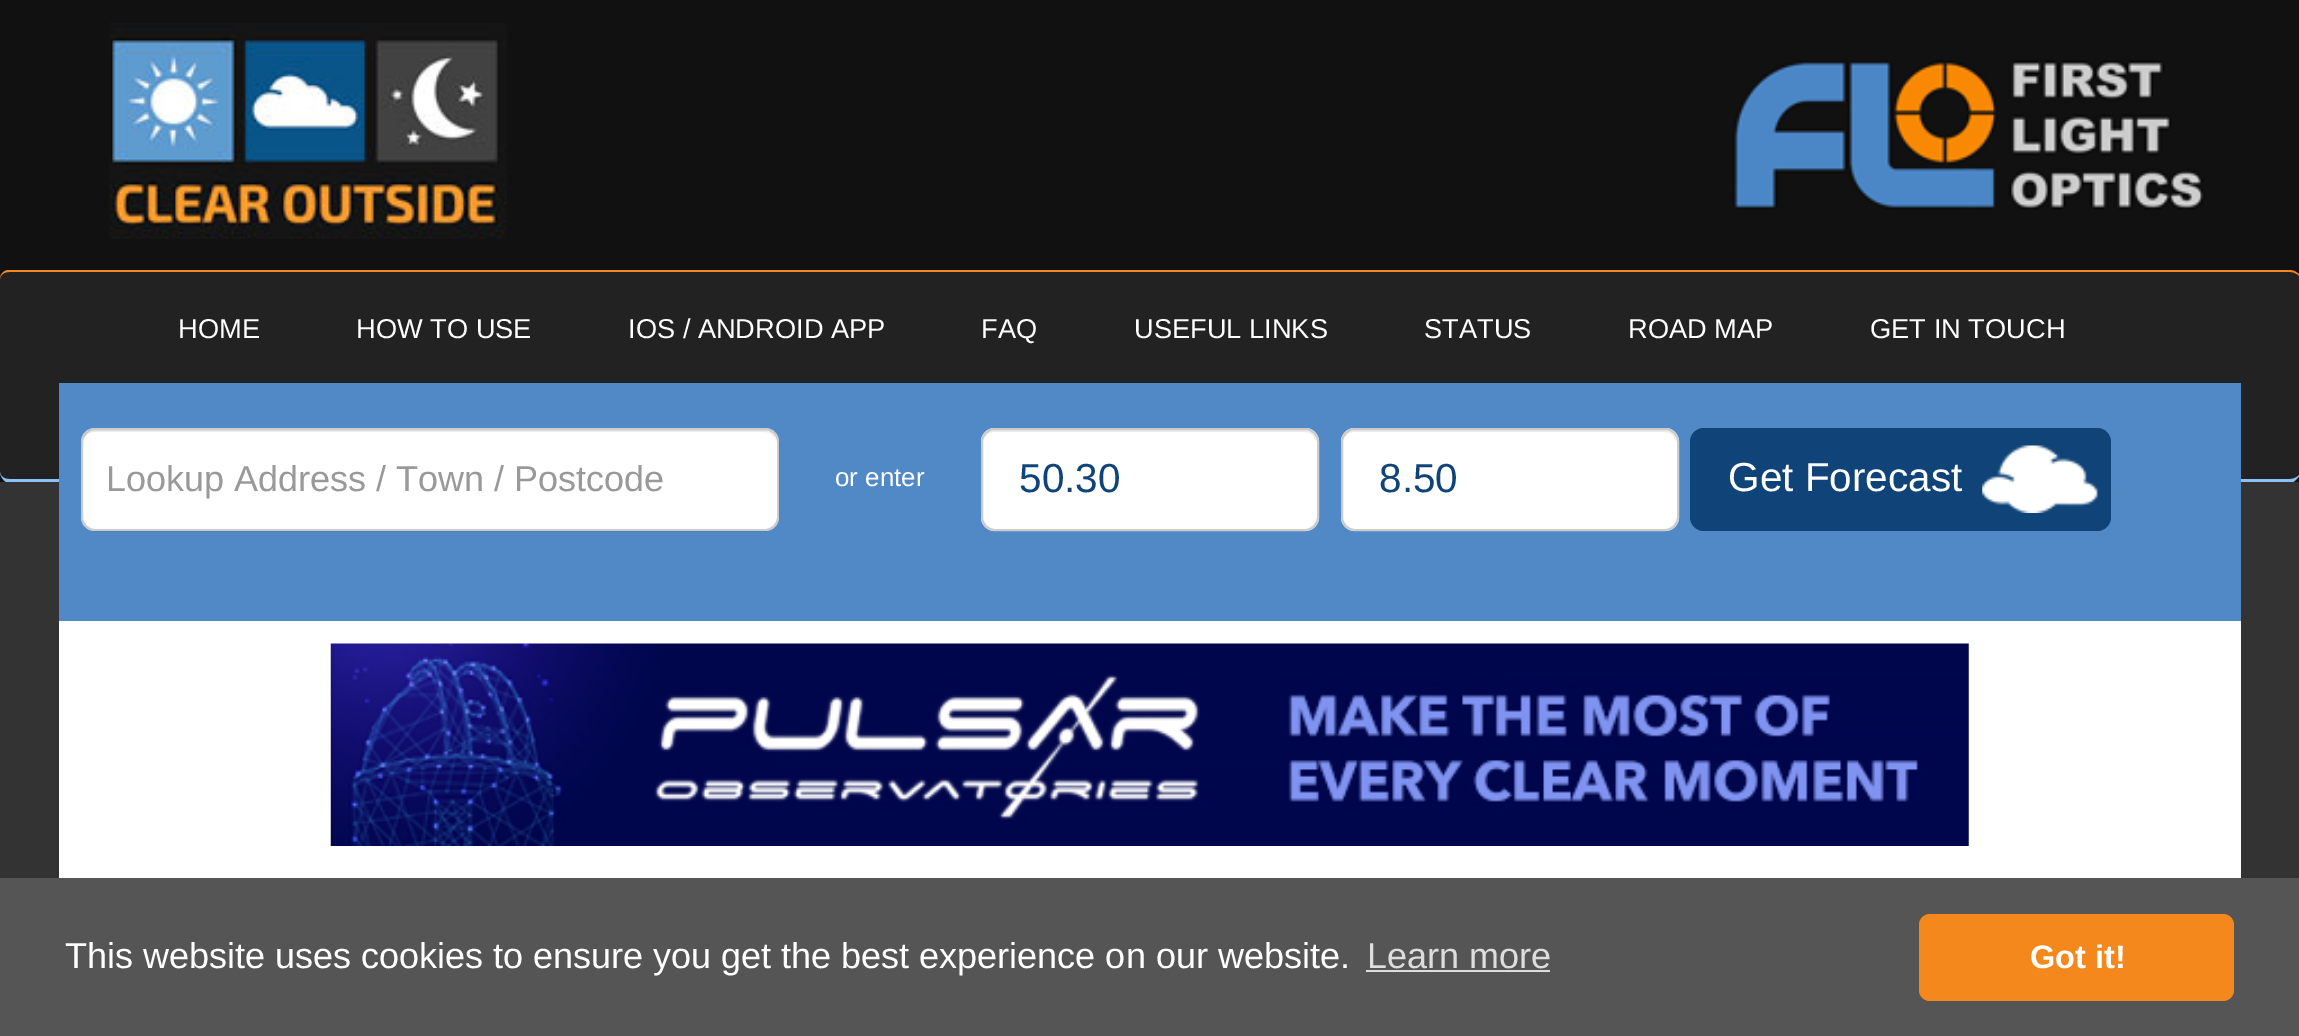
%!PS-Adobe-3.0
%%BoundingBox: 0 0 2299 1036
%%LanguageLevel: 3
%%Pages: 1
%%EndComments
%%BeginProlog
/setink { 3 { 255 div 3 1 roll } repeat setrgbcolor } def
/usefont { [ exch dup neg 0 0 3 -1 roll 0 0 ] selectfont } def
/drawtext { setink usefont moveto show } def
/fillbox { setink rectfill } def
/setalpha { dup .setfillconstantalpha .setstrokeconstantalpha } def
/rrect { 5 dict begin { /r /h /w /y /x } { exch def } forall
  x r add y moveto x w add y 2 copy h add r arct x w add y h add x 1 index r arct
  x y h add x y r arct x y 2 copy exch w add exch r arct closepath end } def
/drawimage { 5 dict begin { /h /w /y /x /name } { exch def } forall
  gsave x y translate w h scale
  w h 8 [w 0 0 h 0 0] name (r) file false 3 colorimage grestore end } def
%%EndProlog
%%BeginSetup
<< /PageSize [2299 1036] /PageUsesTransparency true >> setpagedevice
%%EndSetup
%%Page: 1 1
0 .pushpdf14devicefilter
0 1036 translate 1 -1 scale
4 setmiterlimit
0 0 2299 1036 51 51 51 fillbox
0 0 2299 482 17 17 17 fillbox
(assets/img1.rgb) 109 23 398 216 drawimage
(assets/img2.rgb) 1732 60 473 150 drawimage
34 34 34 setink
9 272 moveto 2290 272 lineto 2295 272 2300 275 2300 279 curveto 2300 472 lineto 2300 476 2295 479 2290 479 curveto 9 479 lineto 4 479 0 476 0 472 curveto 0 279 lineto 0 275 4 272 9 272 curveto closepath fill
244 136 28 setink
9 270 moveto 4 270 0 274 0 279 curveto 0 275 4 272 9 272 curveto 2290 272 lineto 2294 272 2298 274 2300 277 curveto 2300 273 2293 270 2290 270 curveto closepath fill
138 193 248 setink
6 482 moveto 3 480 0 476 0 472 curveto 0 476 4 479 9 479 curveto 2290 479 lineto 2294 479 2298 477 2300 474 curveto 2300 476 2295 481 2293 482 curveto closepath fill
(HOME) 178 338 /LiberationSans-Regular 27.25 255 255 255 drawtext
(HOW TO USE) 356 338 /LiberationSans-Regular 27.25 255 255 255 drawtext
(IOS / ANDROID APP) 628 338 /LiberationSans-Regular 27.25 255 255 255 drawtext
(FAQ) 981 338 /LiberationSans-Regular 27.25 255 255 255 drawtext
(USEFUL LINKS) 1134 338 /LiberationSans-Regular 27.25 255 255 255 drawtext
(STATUS) 1424 338 /LiberationSans-Regular 27.25 255 255 255 drawtext
(ROAD MAP) 1628 338 /LiberationSans-Regular 27.25 255 255 255 drawtext
(GET IN TOUCH) 1870 338 /LiberationSans-Regular 27.25 255 255 255 drawtext
59 383 2182 238 80 137 198 fillbox
255 255 255 setink
81 428 698 103 14 rrect fill
236 236 236 setink
94 432 moveto 765 432 lineto 771 432 776 437 776 443 curveto 776 436 772 430 765 430 curveto 94 430 lineto 87 430 83 436 83 443 curveto 83 437 88 432 94 432 curveto closepath fill
0.2 setalpha
0 0 0 setink
2 setlinewidth
82 429 696 101 13 rrect stroke
1 setalpha
(Lookup Address / Town / Postcode) 106 491 /LiberationSans-Regular 36 153 153 153 drawtext
(or enter) 835 486 /LiberationSans-Regular 26 255 255 255 drawtext
981 428 338 103 14 rrect fill
236 236 236 setink
994 432 moveto 1305 432 lineto 1311 432 1316 437 1316 443 curveto 1316 441 lineto 1316 435 1311 430 1305 430 curveto 994 430 lineto 988 430 983 435 983 441 curveto 983 443 lineto 983 437 988 432 994 432 curveto closepath fill
204 204 204 setink
982 429 336 101 13 rrect stroke
(50.30) 1019 492 /LiberationSans-Regular 40.5 16 67 119 drawtext
255 255 255 setink
1341 428 338 103 14 rrect fill
236 236 236 setink
1354 432 moveto 1665 432 lineto 1671 432 1676 437 1676 443 curveto 1676 441 lineto 1676 435 1671 430 1665 430 curveto 1354 430 lineto 1348 430 1343 435 1343 441 curveto 1343 443 lineto 1343 437 1348 432 1354 432 curveto closepath fill
204 204 204 setink
1342 429 336 101 13 rrect stroke
(8.50) 1379 492 /LiberationSans-Regular 40.5 16 67 119 drawtext
1690 428 421 103 14 rrect fill
(assets/img3.rgb) 1982 445 116 68 drawimage
(Get Forecast) 1728 491 /LiberationSans-Regular 40.5 255 255 255 drawtext
59 621 2182 257 255 255 255 fillbox
(assets/img4.rgb) 330 643 1639 203 drawimage
0 878 2299 158 85 85 85 fillbox
(This website uses cookies to ensure you get the best experience on our website.) 65 968 /LiberationSans-Regular 36 255 255 255 drawtext
(Learn more) 1367 968 /LiberationSans-Regular 36 221 221 221 drawtext
1366 970 184 2 221 221 221 fillbox
244 136 28 setink
1919 914 315 87 11 rrect fill
(Got it!) 2030 968 /LiberationSans-Bold 32.5 255 255 255 drawtext
.poppdf14devicefilter showpage
%%EOF
